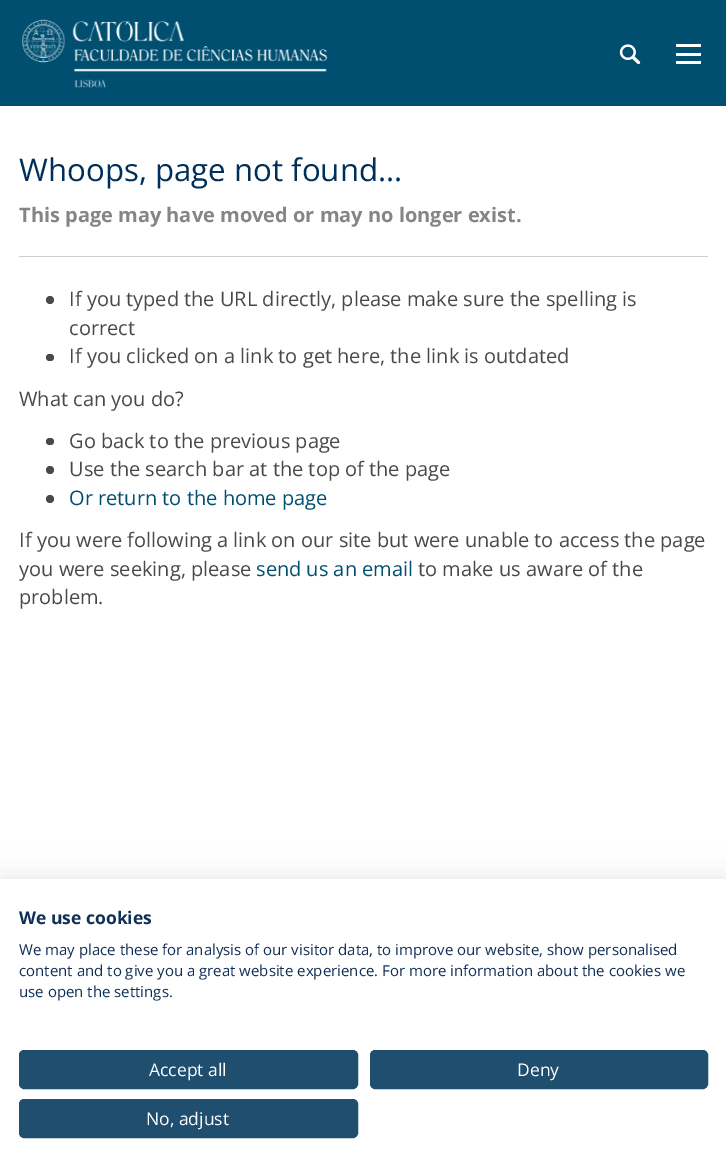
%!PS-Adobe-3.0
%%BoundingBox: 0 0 726 1171
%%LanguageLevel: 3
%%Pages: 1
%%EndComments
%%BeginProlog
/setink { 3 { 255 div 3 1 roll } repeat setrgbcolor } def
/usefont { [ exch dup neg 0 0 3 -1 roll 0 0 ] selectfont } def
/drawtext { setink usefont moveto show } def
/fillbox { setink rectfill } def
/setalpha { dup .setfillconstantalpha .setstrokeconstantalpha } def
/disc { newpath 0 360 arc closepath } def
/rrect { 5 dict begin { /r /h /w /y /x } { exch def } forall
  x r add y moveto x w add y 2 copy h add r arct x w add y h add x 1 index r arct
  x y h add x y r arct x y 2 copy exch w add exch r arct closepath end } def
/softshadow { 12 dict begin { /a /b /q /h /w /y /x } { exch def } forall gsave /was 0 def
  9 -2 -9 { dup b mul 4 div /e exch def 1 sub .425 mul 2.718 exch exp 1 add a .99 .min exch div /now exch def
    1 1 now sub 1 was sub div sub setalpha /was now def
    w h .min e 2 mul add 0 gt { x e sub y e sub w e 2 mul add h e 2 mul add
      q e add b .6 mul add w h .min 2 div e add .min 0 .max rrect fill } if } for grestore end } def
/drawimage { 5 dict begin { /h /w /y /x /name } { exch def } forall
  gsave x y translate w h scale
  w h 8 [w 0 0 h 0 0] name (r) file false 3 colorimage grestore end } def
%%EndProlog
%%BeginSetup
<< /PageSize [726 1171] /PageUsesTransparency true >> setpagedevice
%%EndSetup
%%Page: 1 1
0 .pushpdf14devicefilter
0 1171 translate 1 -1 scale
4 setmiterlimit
0 0 726 1171 255 255 255 fillbox
0 0 726 106 0 79 113 fillbox
(assets/img1.rgb) 22 19 306 69 drawimage
(assets/img2.rgb) 619 44 22 21 drawimage
676 44 25 3 255 255 255 fillbox
676 53 25 3 255 255 255 fillbox
676 61 25 3 255 255 255 fillbox
(Whoops, page not found...) 19 181 /OpenSans-Regular 31.25 0 48 89 drawtext
(This page may have moved or may no longer exist.) 19 222 /OpenSans-Bold 20 133 133 133 drawtext
19 256 689 1 206 206 206 fillbox
73 73 73 setink
50 300 4 disc fill
(If you typed the URL directly, please make sure the spelling is) 69 306 /OpenSans-Regular 20 73 73 73 drawtext
(correct) 69 335 /OpenSans-Regular 20 73 73 73 drawtext
46 354 8 7 3.5 rrect fill
(If you clicked on a link to get here, the link is outdated) 69 363 /OpenSans-Regular 20 73 73 73 drawtext
(What can you do?) 19 406 /OpenSans-Regular 20 73 73 73 drawtext
46 438 8 7 3.5 rrect fill
(Go back to the previous page) 69 448 /OpenSans-Regular 20 73 73 73 drawtext
50 470 4 disc fill
(Use the search bar at the top of the page) 69 476 /OpenSans-Regular 20 73 73 73 drawtext
50 499 4 disc fill
(Or return to the home page) 69 505 /OpenSans-Regular 20 0 79 113 drawtext
(If you were following a link on our site but were unable to access the page) 19 547 /OpenSans-Regular 20 73 73 73 drawtext
(you were seeking, please) 19 576 /OpenSans-Regular 20 73 73 73 drawtext
(send us an email) 256 576 /OpenSans-Regular 20 0 79 113 drawtext
(to make us aware of the) 418 576 /OpenSans-Regular 20 73 73 73 drawtext
(problem.) 19 604 /OpenSans-Regular 20 73 73 73 drawtext
0 0 0 setink
0 879 726 292 0 15 0.1 softshadow
0 879 726 292 255 255 255 fillbox
(We use cookies) 19 924 /OpenSans-Bold 17.5 16 47 86 drawtext
(We may place these for analysis of our visitor data, to improve our website, show personalised) 19 955 /OpenSans-Regular 15 16 47 86 drawtext
(content and to give you a great website experience. For more information about the cookies we) 19 976 /OpenSans-Regular 15 16 47 86 drawtext
(use open the settings.) 19 997 /OpenSans-Regular 15 16 47 86 drawtext
31 78 110 setink
19.5 1050.5 338 38 4.5 rrect gsave fill grestore
stroke
(Accept all) 149 1076 /OpenSans-Regular 17.5 255 255 255 drawtext
31 78 110 setink
370.5 1050.5 337 38 4.5 rrect gsave fill grestore
stroke
(Deny) 517 1076 /OpenSans-Regular 17.5 255 255 255 drawtext
31 78 110 setink
19.5 1099.5 338 38 4.5 rrect gsave fill grestore
stroke
(No, adjust) 146 1125 /OpenSans-Regular 17.5 255 255 255 drawtext
.poppdf14devicefilter showpage
%%EOF
